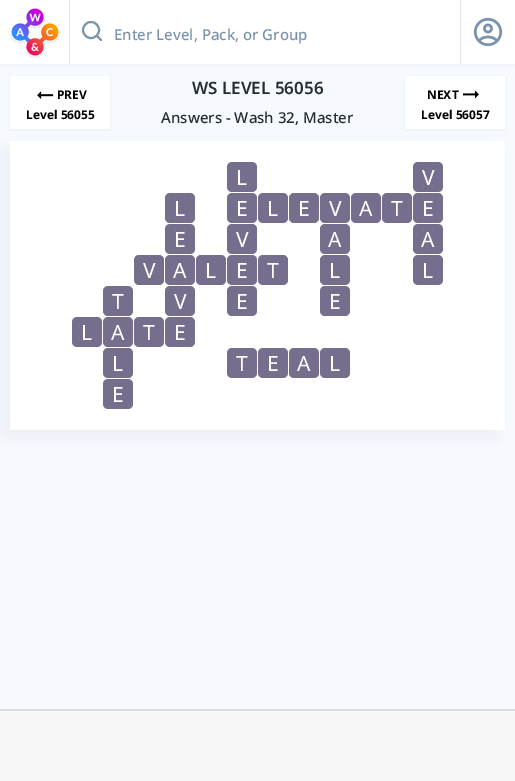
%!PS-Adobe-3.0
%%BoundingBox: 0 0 515 781
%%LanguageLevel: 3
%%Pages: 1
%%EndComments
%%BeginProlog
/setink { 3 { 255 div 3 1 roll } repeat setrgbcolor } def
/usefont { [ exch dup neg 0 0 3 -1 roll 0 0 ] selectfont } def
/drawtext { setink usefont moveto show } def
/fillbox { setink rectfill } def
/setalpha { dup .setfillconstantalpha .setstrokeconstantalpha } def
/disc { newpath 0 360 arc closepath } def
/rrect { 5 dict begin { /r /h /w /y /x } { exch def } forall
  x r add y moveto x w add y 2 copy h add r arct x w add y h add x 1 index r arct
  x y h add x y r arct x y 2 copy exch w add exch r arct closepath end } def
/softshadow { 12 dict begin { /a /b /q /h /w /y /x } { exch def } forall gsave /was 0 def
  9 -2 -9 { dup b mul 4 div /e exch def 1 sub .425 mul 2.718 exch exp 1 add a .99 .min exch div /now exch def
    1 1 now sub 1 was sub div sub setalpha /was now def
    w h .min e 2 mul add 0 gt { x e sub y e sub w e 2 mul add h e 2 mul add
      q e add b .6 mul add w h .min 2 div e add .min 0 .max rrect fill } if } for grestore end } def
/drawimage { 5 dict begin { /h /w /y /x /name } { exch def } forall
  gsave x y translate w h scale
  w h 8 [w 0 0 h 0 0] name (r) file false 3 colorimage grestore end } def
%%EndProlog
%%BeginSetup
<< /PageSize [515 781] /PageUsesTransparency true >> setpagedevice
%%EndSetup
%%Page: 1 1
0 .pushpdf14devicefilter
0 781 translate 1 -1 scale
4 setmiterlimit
0 0 515 781 246 249 253 fillbox
124 147 173 setink
0 1 515 64 0 2.5 0.1 softshadow
0 0 515 64 255 255 255 fillbox
69 0 1 64 222 229 233 fillbox
(assets/img1.rgb) 9 7 52 51 drawimage
124 147 173 setink
2 setlinewidth
91 30 8 disc stroke
1 setlinecap
1 setlinejoin
101 40 moveto 97 36 lineto stroke
(Enter Level, Pack, or Group) 114 40 /NotoSans-Medium 15 124 147 173 drawtext
460 0 1 64 222 229 233 fillbox
(assets/img2.rgb) 473 17 30 30 drawimage
124 147 173 setink
10 77 100 53 0 3 0.1 softshadow
2 149 495 289 0 8 0.1 softshadow
10 76 100 53 255 255 255 fillbox
(assets/img3.rgb) 37 91 17 8 drawimage
(PREV) 57 99 /NotoSans-Bold 12 0 0 0 drawtext
(Level 56055) 26 119 /NotoSans-Bold 12 0 0 0 drawtext
(WS LEVEL 56056) 192 94 /NotoSans-SemiBold 17 40 45 50 drawtext
(Answers - Wash 32, Master) 161 123 /NotoSans-Medium 15 40 45 50 drawtext
124 147 173 setink
405 77 100 53 0 3 0.1 softshadow
405 76 100 53 255 255 255 fillbox
(NEXT) 427 99 /NotoSans-Bold 12 0 0 0 drawtext
(assets/img4.rgb) 463 90 16 9 drawimage
(Level 56057) 421 119 /NotoSans-Bold 12 0 0 0 drawtext
10 141 495 289 255 255 255 fillbox
117 110 141 setink
227 162 30 30 5 rrect fill
(L) 236 185 /NotoSans-Regular 21 255 255 255 drawtext
117 110 141 setink
413 162 30 30 5 rrect fill
(V) 422 185 /NotoSans-Regular 21 255 255 255 drawtext
117 110 141 setink
165 193 30 30 5 rrect fill
(L) 174 216 /NotoSans-Regular 21 255 255 255 drawtext
117 110 141 setink
227 193 30 30 5 rrect fill
(E) 236 216 /NotoSans-Regular 21 255 255 255 drawtext
117 110 141 setink
258 193 30 30 5 rrect fill
(L) 267 216 /NotoSans-Regular 21 255 255 255 drawtext
117 110 141 setink
289 193 30 30 5 rrect fill
(E) 298 216 /NotoSans-Regular 21 255 255 255 drawtext
117 110 141 setink
320 193 30 30 5 rrect fill
(V) 329 216 /NotoSans-Regular 21 255 255 255 drawtext
117 110 141 setink
351 193 30 30 5 rrect fill
(A) 359 216 /NotoSans-Regular 21 255 255 255 drawtext
117 110 141 setink
382 193 30 30 5 rrect fill
(T) 391 216 /NotoSans-Regular 21 255 255 255 drawtext
117 110 141 setink
413 193 30 30 5 rrect fill
(E) 422 216 /NotoSans-Regular 21 255 255 255 drawtext
117 110 141 setink
165 224 30 30 5 rrect fill
(E) 174 247 /NotoSans-Regular 21 255 255 255 drawtext
117 110 141 setink
227 224 30 30 5 rrect fill
(V) 236 247 /NotoSans-Regular 21 255 255 255 drawtext
117 110 141 setink
320 224 30 30 5 rrect fill
(A) 328 247 /NotoSans-Regular 21 255 255 255 drawtext
117 110 141 setink
413 224 30 30 5 rrect fill
(A) 421 247 /NotoSans-Regular 21 255 255 255 drawtext
117 110 141 setink
134 255 30 30 5 rrect fill
(V) 143 278 /NotoSans-Regular 21 255 255 255 drawtext
117 110 141 setink
165 255 30 30 5 rrect fill
(A) 173 278 /NotoSans-Regular 21 255 255 255 drawtext
117 110 141 setink
196 255 30 30 5 rrect fill
(L) 205 278 /NotoSans-Regular 21 255 255 255 drawtext
117 110 141 setink
227 255 30 30 5 rrect fill
(E) 236 278 /NotoSans-Regular 21 255 255 255 drawtext
117 110 141 setink
258 255 30 30 5 rrect fill
(T) 267 278 /NotoSans-Regular 21 255 255 255 drawtext
117 110 141 setink
320 255 30 30 5 rrect fill
(L) 329 278 /NotoSans-Regular 21 255 255 255 drawtext
117 110 141 setink
413 255 30 30 5 rrect fill
(L) 422 278 /NotoSans-Regular 21 255 255 255 drawtext
117 110 141 setink
103 286 30 30 5 rrect fill
(T) 112 309 /NotoSans-Regular 21 255 255 255 drawtext
117 110 141 setink
165 286 30 30 5 rrect fill
(V) 174 309 /NotoSans-Regular 21 255 255 255 drawtext
117 110 141 setink
227 286 30 30 5 rrect fill
(E) 236 309 /NotoSans-Regular 21 255 255 255 drawtext
117 110 141 setink
320 286 30 30 5 rrect fill
(E) 329 309 /NotoSans-Regular 21 255 255 255 drawtext
117 110 141 setink
72 317 30 30 5 rrect fill
(L) 81 340 /NotoSans-Regular 21 255 255 255 drawtext
117 110 141 setink
103 317 30 30 5 rrect fill
(A) 111 340 /NotoSans-Regular 21 255 255 255 drawtext
117 110 141 setink
134 317 30 30 5 rrect fill
(T) 143 340 /NotoSans-Regular 21 255 255 255 drawtext
117 110 141 setink
165 317 30 30 5 rrect fill
(E) 174 340 /NotoSans-Regular 21 255 255 255 drawtext
117 110 141 setink
103 348 30 30 5 rrect fill
(L) 112 371 /NotoSans-Regular 21 255 255 255 drawtext
117 110 141 setink
227 348 30 30 5 rrect fill
(T) 236 371 /NotoSans-Regular 21 255 255 255 drawtext
117 110 141 setink
258 348 30 30 5 rrect fill
(E) 267 371 /NotoSans-Regular 21 255 255 255 drawtext
117 110 141 setink
289 348 30 30 5 rrect fill
(A) 297 371 /NotoSans-Regular 21 255 255 255 drawtext
117 110 141 setink
320 348 30 30 5 rrect fill
(L) 329 371 /NotoSans-Regular 21 255 255 255 drawtext
117 110 141 setink
103 379 30 30 5 rrect fill
(E) 112 402 /NotoSans-Regular 21 255 255 255 drawtext
0 711 515 70 247 247 247 fillbox
0 709 515 2 221 221 221 fillbox
.poppdf14devicefilter showpage
%%EOF
